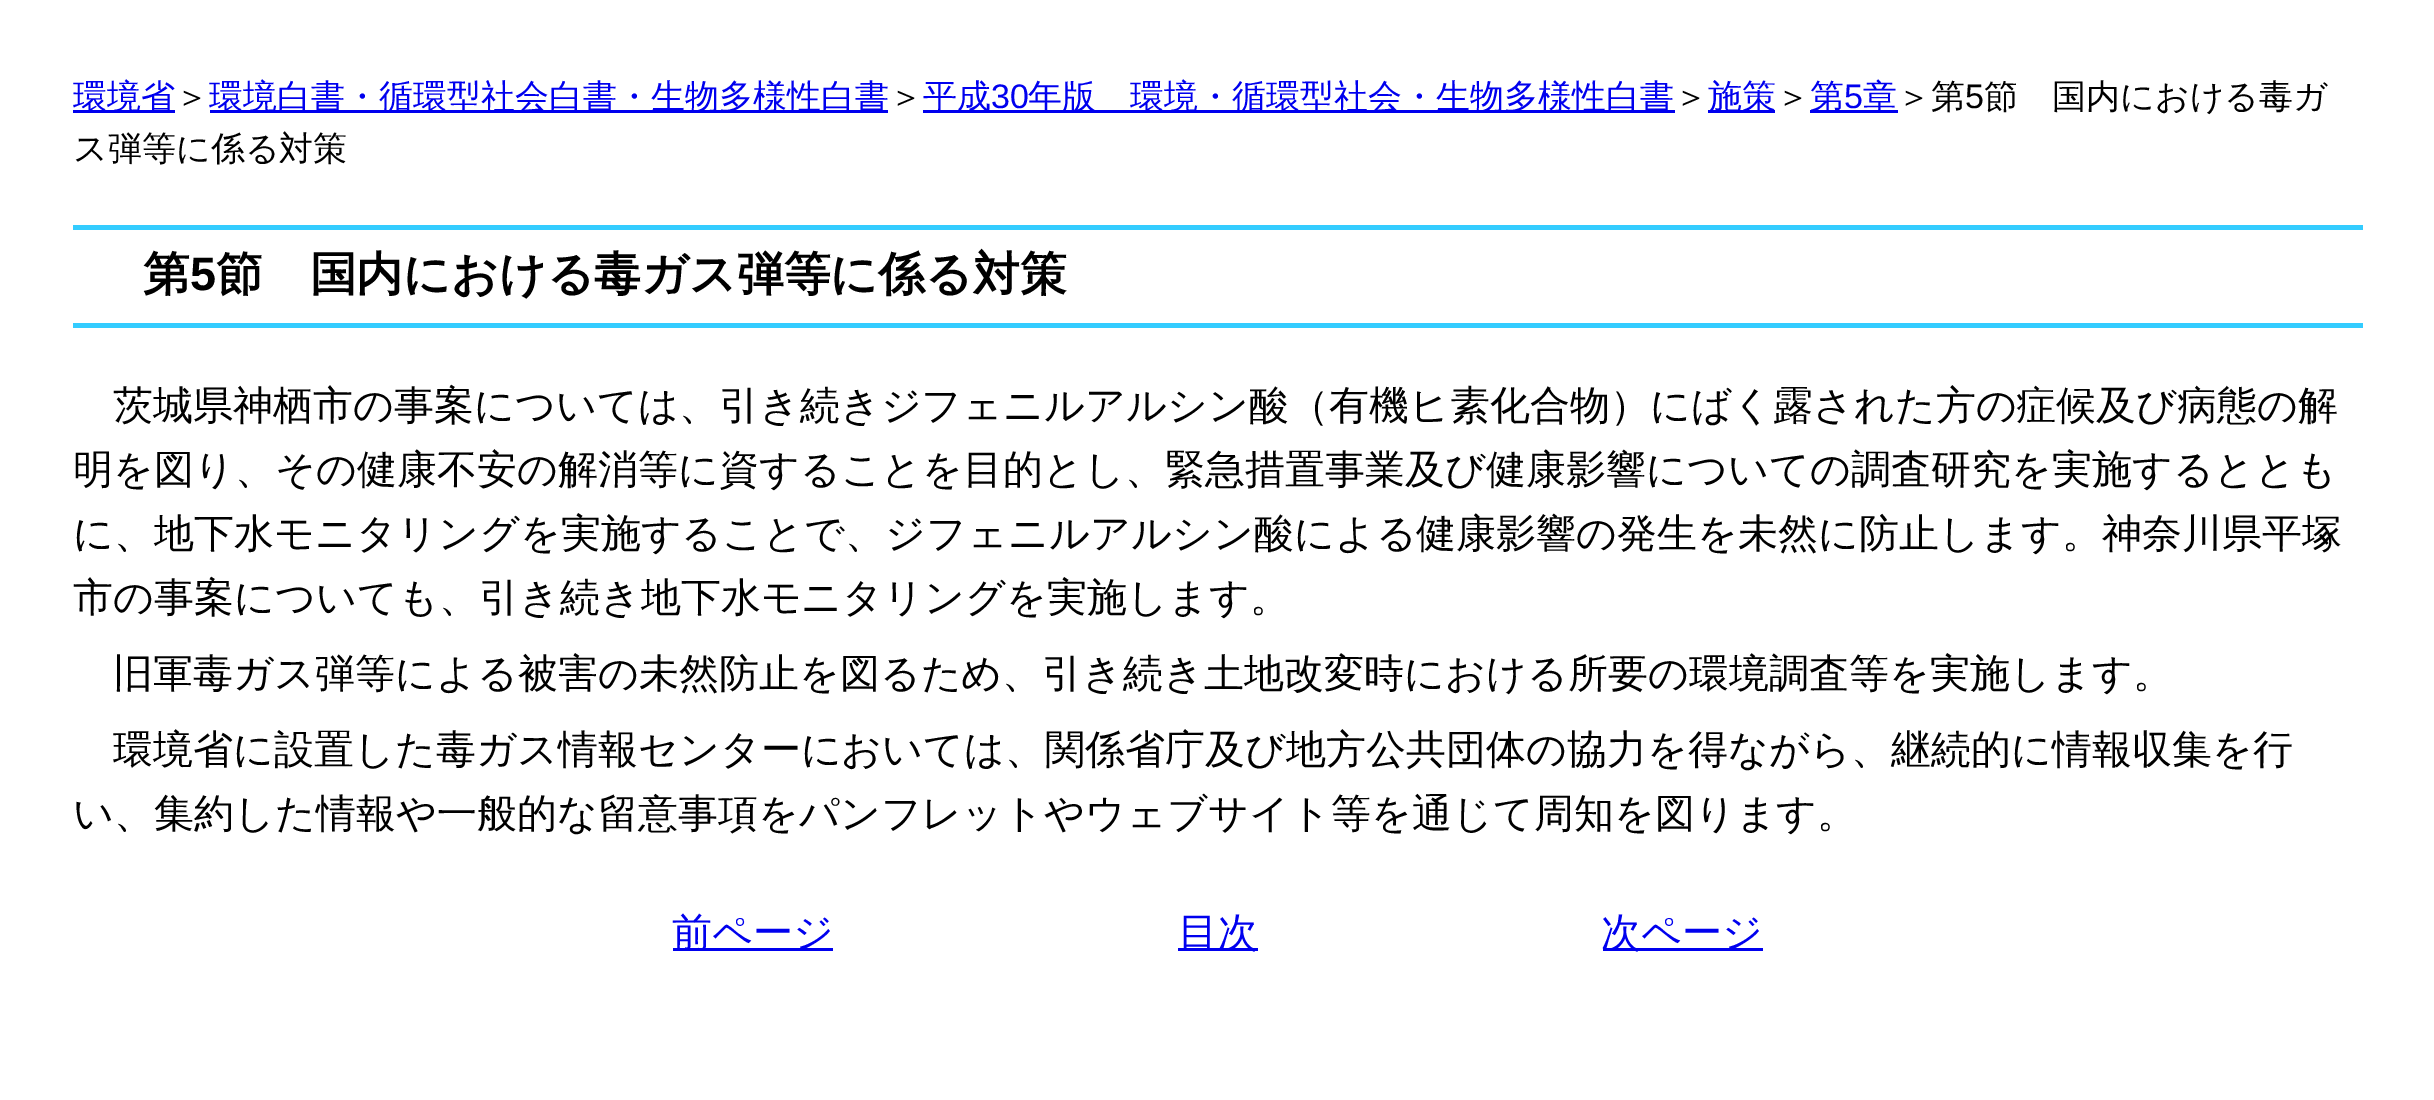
%!PS-Adobe-3.0
%%BoundingBox: 0 0 2434 1100
%%LanguageLevel: 3
%%Pages: 1
%%EndComments
%%BeginProlog
/setink { 3 { 255 div 3 1 roll } repeat setrgbcolor } def
/usefont { [ exch dup neg 0 0 3 -1 roll 0 0 ] selectfont } def
/drawtext { setink usefont moveto show } def
/fillbox { setink rectfill } def
%%EndProlog
%%BeginSetup
<< /PageSize [2434 1100] >> setpagedevice
%%EndSetup
%%Page: 1 1
0 1100 translate 1 -1 scale
4 setmiterlimit
0 0 2434 1100 255 255 255 fillbox
73 110 102 3 0 0 238 fillbox
(環境省) 73 108 /WenQuanYiZenHei-Medium 34 0 0 238 drawtext
(＞) 175 108 /WenQuanYiZenHei-Medium 34 0 0 0 drawtext
210 110 678 3 0 0 238 fillbox
(環境白書・循環型社会白書・生物多様性白書) 209 108 /WenQuanYiZenHei-Medium 34 0 0 238 drawtext
(＞) 889 108 /WenQuanYiZenHei-Medium 34 0 0 0 drawtext
923 110 752 3 0 0 238 fillbox
(平成) 923 108 /WenQuanYiZenHei-Medium 34 0 0 238 drawtext
(30) 991 108 /LiberationSans-Regular 34 0 0 238 drawtext
(年版　環境・循環型社会・生物多様性白書) 1028 108 /WenQuanYiZenHei-Medium 34 0 0 238 drawtext
(＞) 1674 108 /WenQuanYiZenHei-Medium 34 0 0 0 drawtext
1708 110 67 3 0 0 238 fillbox
(施策) 1708 108 /WenQuanYiZenHei-Medium 34 0 0 238 drawtext
(＞) 1776 108 /WenQuanYiZenHei-Medium 34 0 0 0 drawtext
1810 110 88 3 0 0 238 fillbox
(第) 1810 108 /WenQuanYiZenHei-Medium 34 0 0 238 drawtext
(5) 1844 108 /LiberationSans-Regular 34 0 0 238 drawtext
(章) 1863 108 /WenQuanYiZenHei-Medium 34 0 0 238 drawtext
(＞第) 1897 108 /WenQuanYiZenHei-Medium 34 0 0 0 drawtext
(5) 1965 108 /LiberationSans-Regular 34 0 0 0 drawtext
(節　国内における毒ガ) 1984 108 /WenQuanYiZenHei-Medium 34 0 0 0 drawtext
(ス弾等に係る対策) 73 160 /WenQuanYiZenHei-Medium 34 0 0 0 drawtext
73 225 2290 5 51 204 255 fillbox
73 323 2290 5 51 204 255 fillbox
(第) 143 290 /WenQuanYiZenHei-Bold 46.75 0 0 0 drawtext
(5) 190 290 /LiberationSans-Bold 46.75 0 0 0 drawtext
(節　国内における毒ガス弾等に係る対策) 216 290 /WenQuanYiZenHei-Bold 46.75 0 0 0 drawtext
(茨城県神栖市の事案については、引き続きジフェニルアルシン酸（有機ヒ素化合物）にばく露された方の症候及び病態の解) 113 419 /WenQuanYiZenHei-Medium 40 0 0 0 drawtext
(明を図り、その健康不安の解消等に資することを目的とし、緊急措置事業及び健康影響についての調査研究を実施するととも) 73 483 /WenQuanYiZenHei-Medium 40 0 0 0 drawtext
(に、地下水モニタリングを実施することで、ジフェニルアルシン酸による健康影響の発生を未然に防止します。神奈川県平塚) 73 547 /WenQuanYiZenHei-Medium 40 0 0 0 drawtext
(市の事案についても、引き続き地下水モニタリングを実施します。) 73 611 /WenQuanYiZenHei-Medium 40 0 0 0 drawtext
(旧軍毒ガス弾等による被害の未然防止を図るため、引き続き土地改変時における所要の環境調査等を実施します。) 113 687 /WenQuanYiZenHei-Medium 40 0 0 0 drawtext
(環境省に設置した毒ガス情報センターにおいては、関係省庁及び地方公共団体の協力を得ながら、継続的に情報収集を行) 113 763 /WenQuanYiZenHei-Medium 40 0 0 0 drawtext
(い、集約した情報や一般的な留意事項をパンフレットやウェブサイト等を通じて周知を図ります。) 73 827 /WenQuanYiZenHei-Medium 40 0 0 0 drawtext
673 948 160 3 0 0 238 fillbox
(前ページ) 672 946 /WenQuanYiZenHei-Medium 40 0 0 238 drawtext
1178 948 80 3 0 0 238 fillbox
(目次) 1178 946 /WenQuanYiZenHei-Medium 40 0 0 238 drawtext
1603 948 160 3 0 0 238 fillbox
(次ページ) 1601 946 /WenQuanYiZenHei-Medium 40 0 0 238 drawtext
showpage
%%EOF
